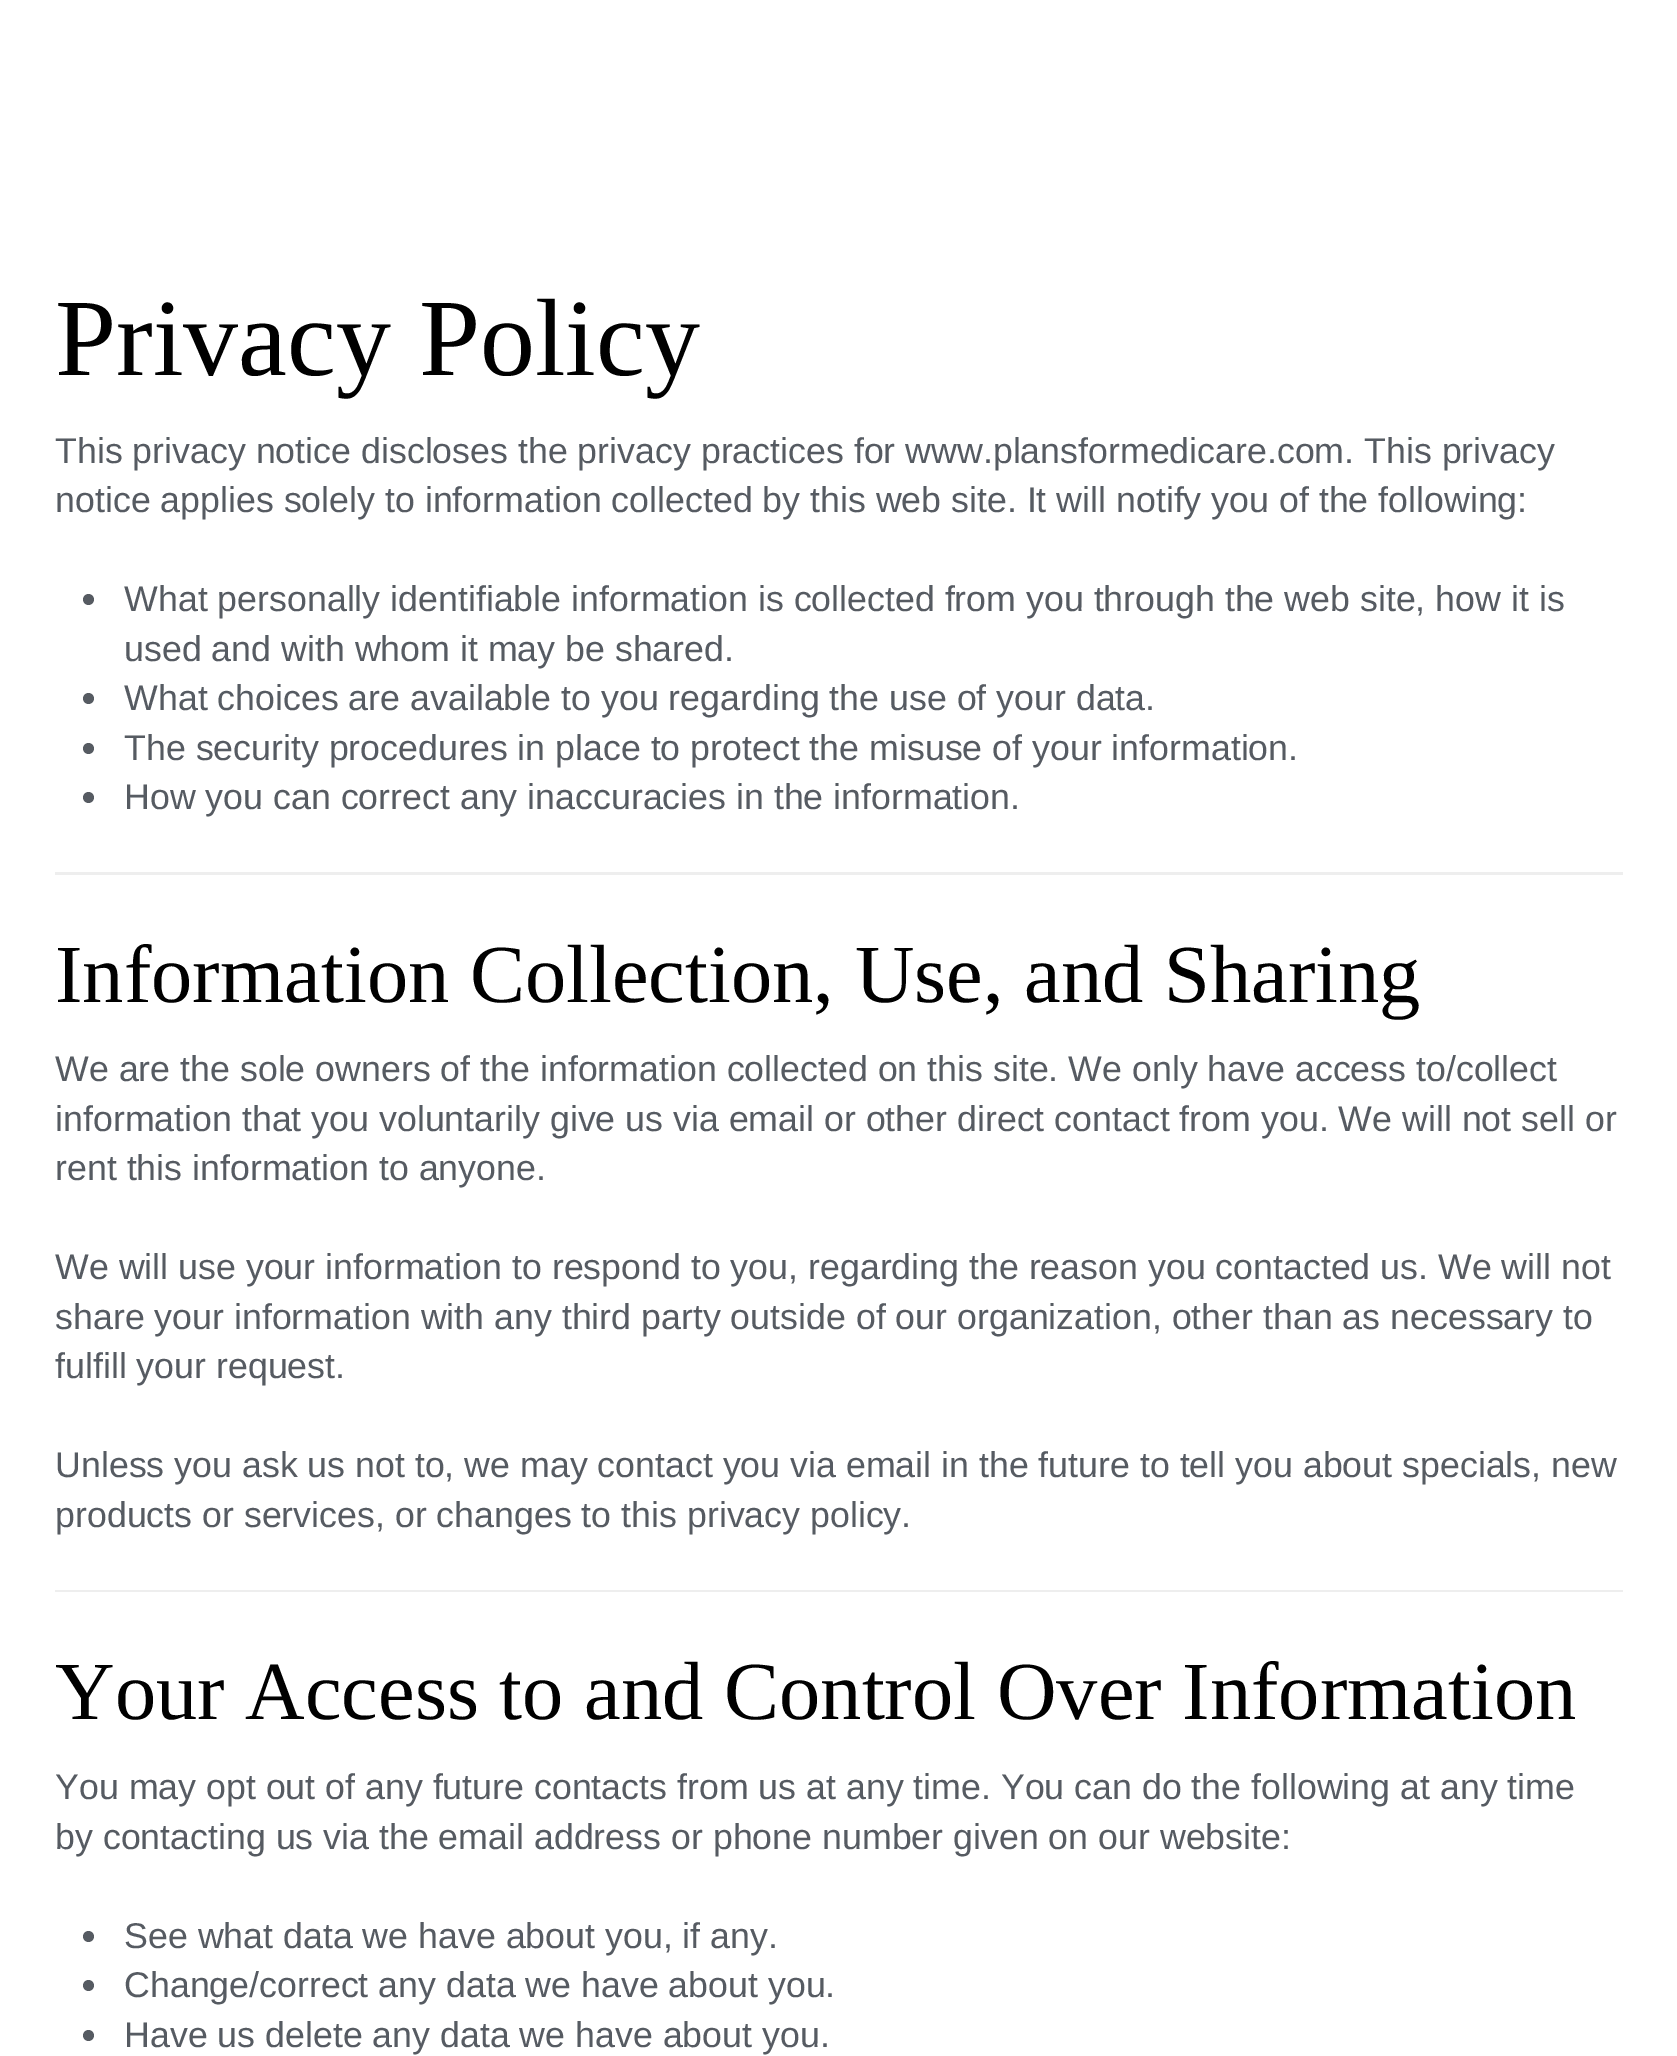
%!PS-Adobe-3.0
%%BoundingBox: 0 0 1677 2056
%%LanguageLevel: 3
%%Pages: 1
%%EndComments
%%BeginProlog
/setink { 3 { 255 div 3 1 roll } repeat setrgbcolor } def
/usefont { [ exch dup neg 0 0 3 -1 roll 0 0 ] selectfont } def
/drawtext { setink usefont moveto show } def
/fillbox { setink rectfill } def
/disc { newpath 0 360 arc closepath } def
%%EndProlog
%%BeginSetup
<< /PageSize [1677 2056] >> setpagedevice
%%EndSetup
%%Page: 1 1
0 2056 translate 1 -1 scale
4 setmiterlimit
0 0 1677 2056 255 255 255 fillbox
(Privacy Policy) 55 375 /LiberationSerif-Regular 110 0 0 0 drawtext
(This privacy notice discloses the privacy practices for www.plansformedicare.com. This privacy) 55 463 /LiberationSans-Regular 35.75 86 91 98 drawtext
(notice applies solely to information collected by this web site. It will notify you of the following:) 55 512 /LiberationSans-Regular 35.75 86 91 98 drawtext
88.5 599.5 5.5 disc fill
(What personally identifiable information is collected from you through the web site, how it is) 124 611 /LiberationSans-Regular 35.75 86 91 98 drawtext
(used and with whom it may be shared.) 124 661 /LiberationSans-Regular 35.75 86 91 98 drawtext
88.5 698.5 5.5 disc fill
(What choices are available to you regarding the use of your data.) 124 710 /LiberationSans-Regular 35.75 86 91 98 drawtext
88.5 748.5 5.5 disc fill
(The security procedures in place to protect the misuse of your information.) 124 760 /LiberationSans-Regular 35.75 86 91 98 drawtext
88.5 797.5 5.5 disc fill
(How you can correct any inaccuracies in the information.) 124 809 /LiberationSans-Regular 35.75 86 91 98 drawtext
55 872 1568 3 238 238 238 fillbox
(Information Collection, Use, and Sharing) 55 1002 /LiberationSerif-Regular 82.5 0 0 0 drawtext
(We are the sole owners of the information collected on this site. We only have access to/collect) 55 1081 /LiberationSans-Regular 35.75 86 91 98 drawtext
(information that you voluntarily give us via email or other direct contact from you. We will not sell or) 55 1131 /LiberationSans-Regular 35.75 86 91 98 drawtext
(rent this information to anyone.) 55 1180 /LiberationSans-Regular 35.75 86 91 98 drawtext
(We will use your information to respond to you, regarding the reason you contacted us. We will not) 55 1279 /LiberationSans-Regular 35.75 86 91 98 drawtext
(share your information with any third party outside of our organization, other than as necessary to) 55 1329 /LiberationSans-Regular 35.75 86 91 98 drawtext
(fulfill your request.) 55 1378 /LiberationSans-Regular 35.75 86 91 98 drawtext
(Unless you ask us not to, we may contact you via email in the future to tell you about specials, new) 55 1477 /LiberationSans-Regular 35.75 86 91 98 drawtext
(products or services, or changes to this privacy policy.) 55 1527 /LiberationSans-Regular 35.75 86 91 98 drawtext
55 1590 1568 2 238 238 238 fillbox
(Your Access to and Control Over Information) 55 1719 /LiberationSerif-Regular 82.5 0 0 0 drawtext
(You may opt out of any future contacts from us at any time. You can do the following at any time) 55 1799 /LiberationSans-Regular 35.75 86 91 98 drawtext
(by contacting us via the email address or phone number given on our website:) 55 1849 /LiberationSans-Regular 35.75 86 91 98 drawtext
88.5 1936.5 5.5 disc fill
(See what data we have about you, if any.) 124 1948 /LiberationSans-Regular 35.75 86 91 98 drawtext
88.5 1985.5 5.5 disc fill
(Change/correct any data we have about you.) 124 1997 /LiberationSans-Regular 35.75 86 91 98 drawtext
88.5 2035.5 5.5 disc fill
(Have us delete any data we have about you.) 124 2047 /LiberationSans-Regular 35.75 86 91 98 drawtext
showpage
%%EOF
